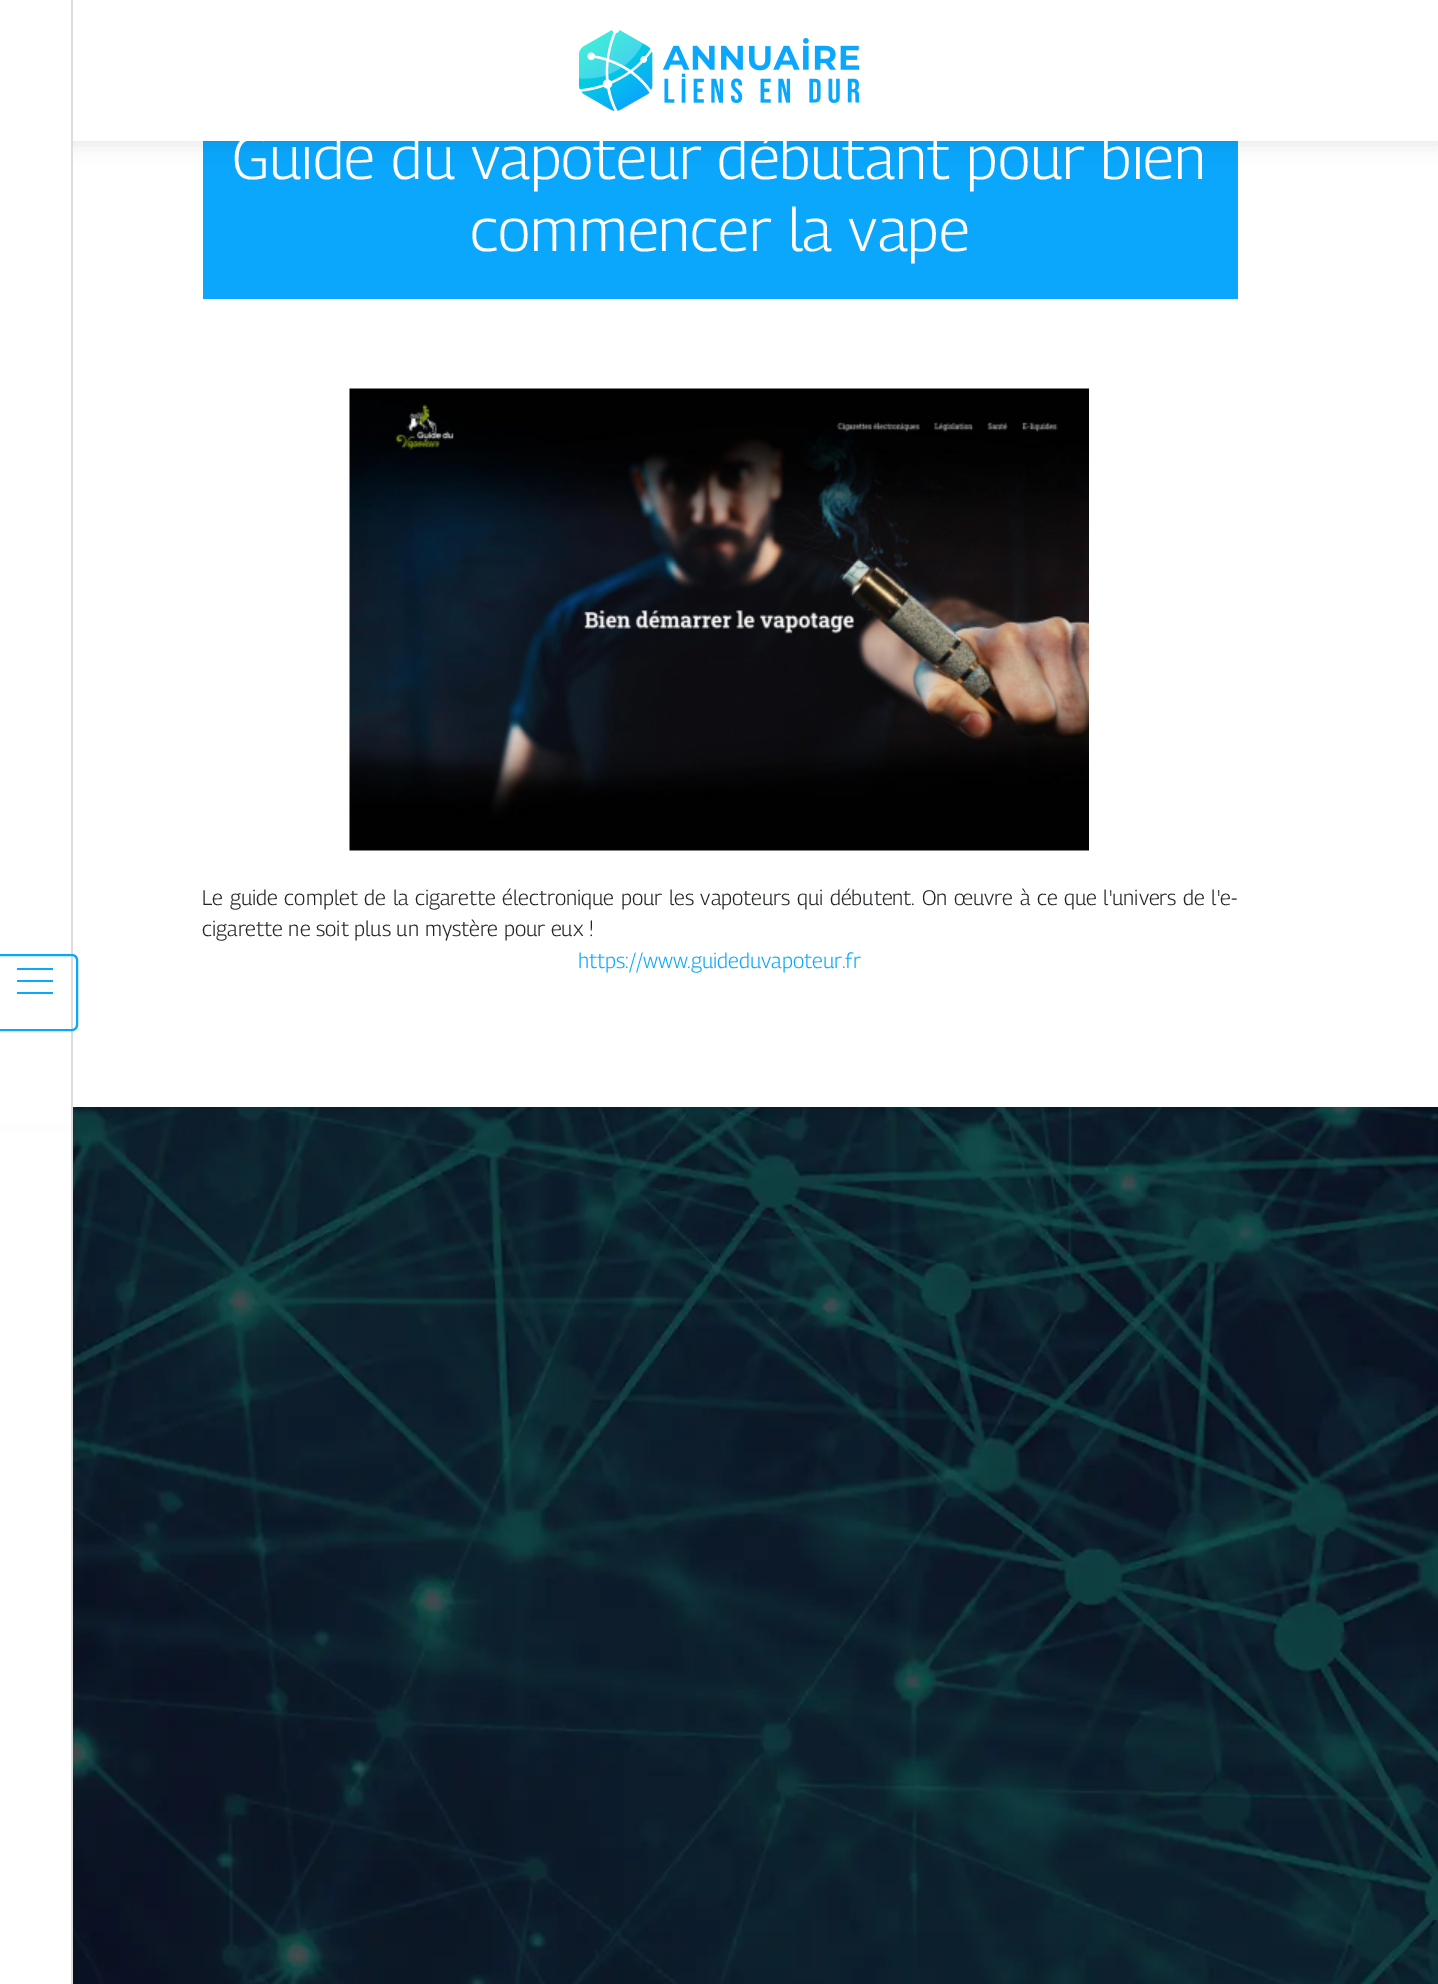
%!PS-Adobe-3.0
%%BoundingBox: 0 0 1438 1984
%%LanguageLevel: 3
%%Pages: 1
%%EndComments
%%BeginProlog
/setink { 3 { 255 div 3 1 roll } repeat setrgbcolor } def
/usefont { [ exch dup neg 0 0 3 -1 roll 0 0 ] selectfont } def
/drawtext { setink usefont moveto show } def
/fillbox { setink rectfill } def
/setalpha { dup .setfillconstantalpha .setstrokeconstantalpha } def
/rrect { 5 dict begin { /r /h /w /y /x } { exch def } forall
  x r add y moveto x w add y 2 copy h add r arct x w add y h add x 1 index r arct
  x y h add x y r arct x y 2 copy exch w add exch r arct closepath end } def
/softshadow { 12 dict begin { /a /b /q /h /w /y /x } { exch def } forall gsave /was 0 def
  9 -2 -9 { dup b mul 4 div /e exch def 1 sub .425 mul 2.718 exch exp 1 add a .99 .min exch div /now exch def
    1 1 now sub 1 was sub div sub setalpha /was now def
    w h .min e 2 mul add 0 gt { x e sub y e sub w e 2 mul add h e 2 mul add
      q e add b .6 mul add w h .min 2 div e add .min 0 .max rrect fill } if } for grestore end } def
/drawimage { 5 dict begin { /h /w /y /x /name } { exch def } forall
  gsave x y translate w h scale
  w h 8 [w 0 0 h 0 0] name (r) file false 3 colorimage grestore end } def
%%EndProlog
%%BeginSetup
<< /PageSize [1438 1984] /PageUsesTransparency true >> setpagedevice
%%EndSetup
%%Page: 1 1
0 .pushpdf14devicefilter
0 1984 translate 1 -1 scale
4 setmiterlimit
0 0 1438 1984 255 255 255 fillbox
(assets/img1.rgb) 73 1107 1365 877 drawimage
0 0 0 setink
0 63 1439 1047 0 10 0.1 softshadow
73 141 1365 966 255 255 255 fillbox
203 141 1035 158 10 167 252 fillbox
0 0 0 setink
0 3 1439 141 0 10 0.1 softshadow
73 0 1365 141 255 255 255 fillbox
0 0 71 1123 255 255 255 fillbox
71 0 2 1984 221 221 221 fillbox
10 167 252 setink
2 setlinewidth
-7 955 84 75 5 rrect stroke
17 968 36 2 10 167 252 fillbox
17 980 36 2 10 167 252 fillbox
17 992 36 2 10 167 252 fillbox
(assets/img2.rgb) 579 30 281 81 drawimage
(Guide du vapoteur débutant pour bien) 232 179 /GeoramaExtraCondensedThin-Thin 60 255 255 255 drawtext
(commencer la vape) 470 251 /GeoramaExtraCondensedThin-Thin 60 255 255 255 drawtext
(assets/img3.rgb) 349 388 740 463 drawimage
/GeoramaExtraCondensedThin-Thin 21 usefont
33 37 41 setink
202 905 moveto 1 0 32 (Le guide complet de la cigarette électronique pour les vapoteurs qui débutent. On œuvre à ce que l'univers de l'e-) widthshow
(cigarette ne soit plus un mystère pour eux !) 202 936 /GeoramaExtraCondensedThin-Thin 21 33 37 41 drawtext
(https://www.guideduvapoteur.fr) 578 968 /GeoramaExtraCondensedThin-Thin 21 10 167 252 drawtext
.poppdf14devicefilter showpage
%%EOF
